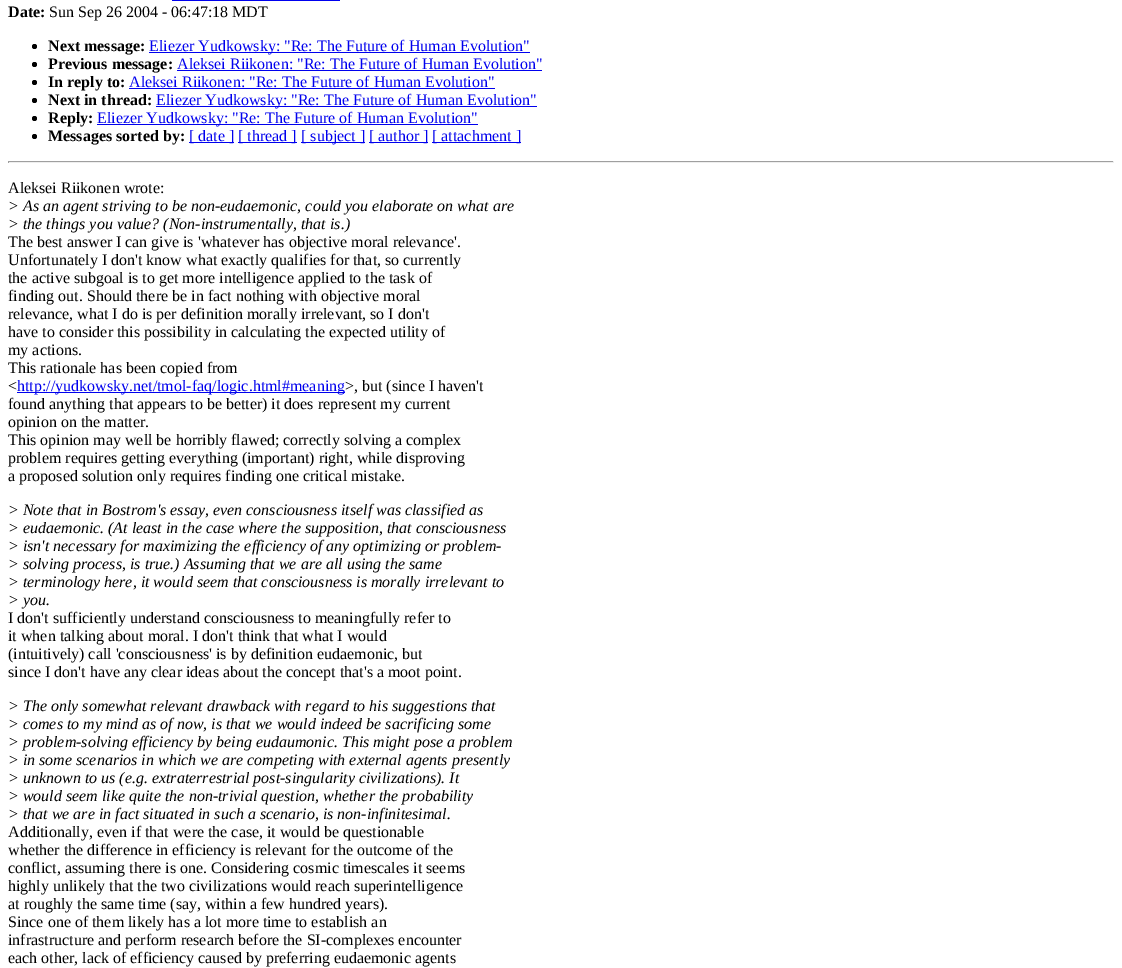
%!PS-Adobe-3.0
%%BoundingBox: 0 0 1122 968
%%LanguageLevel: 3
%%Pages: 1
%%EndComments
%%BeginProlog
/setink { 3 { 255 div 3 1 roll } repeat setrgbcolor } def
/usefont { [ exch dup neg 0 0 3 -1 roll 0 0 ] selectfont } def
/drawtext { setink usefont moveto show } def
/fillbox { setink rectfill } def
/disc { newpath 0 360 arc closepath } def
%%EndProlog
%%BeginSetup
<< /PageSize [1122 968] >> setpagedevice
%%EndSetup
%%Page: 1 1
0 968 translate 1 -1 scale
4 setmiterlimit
0 0 1122 968 255 255 255 fillbox
172 0 168 1 0 0 238 fillbox
(Date:) 8 17 /LiberationSerif-Bold 16 0 0 0 drawtext
(Sun Sep 26 2004 - 06:47:18 MDT) 49 17 /LiberationSerif-Regular 16 0 0 0 drawtext
34.5 46.5 2.5 disc fill
(Next message:) 48 51 /LiberationSerif-Bold 16 0 0 0 drawtext
149 52 381 1 0 0 238 fillbox
(Eliezer Yudkowsky: "Re: The Future of Human Evolution") 149 51 /LiberationSerif-Regular 16 0 0 238 drawtext
0 0 0 setink
34.5 64.5 2.5 disc fill
(Previous message:) 48 69 /LiberationSerif-Bold 16 0 0 0 drawtext
(Aleksei Riikonen: "Re: The Future of Human Evolution") 177 69 /LiberationSerif-Regular 16 0 0 238 drawtext
177 70 365 1 0 0 238 fillbox
0 0 0 setink
34.5 82.5 2.5 disc fill
(In reply to:) 48 87 /LiberationSerif-Bold 16 0 0 0 drawtext
(Aleksei Riikonen: "Re: The Future of Human Evolution") 129 87 /LiberationSerif-Regular 16 0 0 238 drawtext
129 88 366 1 0 0 238 fillbox
0 0 0 setink
34.5 100.5 2.5 disc fill
(Next in thread:) 48 105 /LiberationSerif-Bold 16 0 0 0 drawtext
156 106 381 1 0 0 238 fillbox
(Eliezer Yudkowsky: "Re: The Future of Human Evolution") 156 105 /LiberationSerif-Regular 16 0 0 238 drawtext
0 0 0 setink
34.5 118.5 2.5 disc fill
(Reply:) 48 123 /LiberationSerif-Bold 16 0 0 0 drawtext
97 124 381 1 0 0 238 fillbox
(Eliezer Yudkowsky: "Re: The Future of Human Evolution") 97 123 /LiberationSerif-Regular 16 0 0 238 drawtext
0 0 0 setink
34.5 136.5 2.5 disc fill
(Messages sorted by:) 48 141 /LiberationSerif-Bold 16 0 0 0 drawtext
189 142 45 1 0 0 238 fillbox
([ date ]) 189 141 /LiberationSerif-Regular 16 0 0 238 drawtext
238 142 59 1 0 0 238 fillbox
([ thread ]) 238 141 /LiberationSerif-Regular 16 0 0 238 drawtext
301 142 64 1 0 0 238 fillbox
([ subject ]) 301 141 /LiberationSerif-Regular 16 0 0 238 drawtext
369 142 59 1 0 0 238 fillbox
([ author ]) 369 141 /LiberationSerif-Regular 16 0 0 238 drawtext
432 142 89 1 0 0 238 fillbox
([ attachment ]) 432 141 /LiberationSerif-Regular 16 0 0 238 drawtext
8 161 1106 1 159 159 159 fillbox
1113 161 1 2 238 238 238 fillbox
8 162 1106 1 238 238 238 fillbox
8 161 1 2 159 159 159 fillbox
(Aleksei Riikonen wrote:) 8 193 /LiberationSerif-Regular 16 0 0 0 drawtext
(> As an agent striving to be non-eudaemonic, could you elaborate on what are) 8 211 /LiberationSerif-Italic 16 0 0 0 drawtext
(> the things you value? \(Non-instrumentally, that is.\)) 8 229 /LiberationSerif-Italic 16 0 0 0 drawtext
(The best answer I can give is 'whatever has objective moral relevance'.) 8 247 /LiberationSerif-Regular 16 0 0 0 drawtext
(Unfortunately I don't know what exactly qualifies for that, so currently) 8 265 /LiberationSerif-Regular 16 0 0 0 drawtext
(the active subgoal is to get more intelligence applied to the task of) 8 283 /LiberationSerif-Regular 16 0 0 0 drawtext
(finding out. Should there be in fact nothing with objective moral) 8 301 /LiberationSerif-Regular 16 0 0 0 drawtext
(relevance, what I do is per definition morally irrelevant, so I don't) 8 319 /LiberationSerif-Regular 16 0 0 0 drawtext
(have to consider this possibility in calculating the expected utility of) 8 337 /LiberationSerif-Regular 16 0 0 0 drawtext
(my actions.) 8 355 /LiberationSerif-Regular 16 0 0 0 drawtext
(This rationale has been copied from) 8 373 /LiberationSerif-Regular 16 0 0 0 drawtext
(<) 8 391 /LiberationSerif-Regular 16 0 0 0 drawtext
17 392 328 1 0 0 238 fillbox
(http://yudkowsky.net/tmol-faq/logic.html#meaning) 17 391 /LiberationSerif-Regular 16 0 0 238 drawtext
(>, but \(since I haven't) 345 391 /LiberationSerif-Regular 16 0 0 0 drawtext
(found anything that appears to be better\) it does represent my current) 8 409 /LiberationSerif-Regular 16 0 0 0 drawtext
(opinion on the matter.) 8 427 /LiberationSerif-Regular 16 0 0 0 drawtext
(This opinion may well be horribly flawed; correctly solving a complex) 8 445 /LiberationSerif-Regular 16 0 0 0 drawtext
(problem requires getting everything \(important\) right, while disproving) 8 463 /LiberationSerif-Regular 16 0 0 0 drawtext
(a proposed solution only requires finding one critical mistake.) 8 481 /LiberationSerif-Regular 16 0 0 0 drawtext
(> Note that in Bostrom's essay, even consciousness itself was classified as) 8 515 /LiberationSerif-Italic 16 0 0 0 drawtext
(> eudaemonic. \(At least in the case where the supposition, that consciousness) 8 533 /LiberationSerif-Italic 16 0 0 0 drawtext
(> isn't necessary for maximizing the efficiency of any optimizing or problem-) 8 551 /LiberationSerif-Italic 16 0 0 0 drawtext
(> solving process, is true.\) Assuming that we are all using the same) 8 569 /LiberationSerif-Italic 16 0 0 0 drawtext
(> terminology here, it would seem that consciousness is morally irrelevant to) 8 587 /LiberationSerif-Italic 16 0 0 0 drawtext
(> you.) 8 605 /LiberationSerif-Italic 16 0 0 0 drawtext
(I don't sufficiently understand consciousness to meaningfully refer to) 8 623 /LiberationSerif-Regular 16 0 0 0 drawtext
(it when talking about moral. I don't think that what I would) 8 641 /LiberationSerif-Regular 16 0 0 0 drawtext
(\(intuitively\) call 'consciousness' is by definition eudaemonic, but) 8 659 /LiberationSerif-Regular 16 0 0 0 drawtext
(since I don't have any clear ideas about the concept that's a moot point.) 8 677 /LiberationSerif-Regular 16 0 0 0 drawtext
(> The only somewhat relevant drawback with regard to his suggestions that) 8 711 /LiberationSerif-Italic 16 0 0 0 drawtext
(> comes to my mind as of now, is that we would indeed be sacrificing some) 8 729 /LiberationSerif-Italic 16 0 0 0 drawtext
(> problem-solving efficiency by being eudaumonic. This might pose a problem) 8 747 /LiberationSerif-Italic 16 0 0 0 drawtext
(> in some scenarios in which we are competing with external agents presently) 8 765 /LiberationSerif-Italic 16 0 0 0 drawtext
(> unknown to us \(e.g. extraterrestrial post-singularity civilizations\). It) 8 783 /LiberationSerif-Italic 16 0 0 0 drawtext
(> would seem like quite the non-trivial question, whether the probability) 8 801 /LiberationSerif-Italic 16 0 0 0 drawtext
(> that we are in fact situated in such a scenario, is non-infinitesimal.) 8 819 /LiberationSerif-Italic 16 0 0 0 drawtext
(Additionally, even if that were the case, it would be questionable) 8 837 /LiberationSerif-Regular 16 0 0 0 drawtext
(whether the difference in efficiency is relevant for the outcome of the) 8 855 /LiberationSerif-Regular 16 0 0 0 drawtext
(conflict, assuming there is one. Considering cosmic timescales it seems) 8 873 /LiberationSerif-Regular 16 0 0 0 drawtext
(highly unlikely that the two civilizations would reach superintelligence) 8 891 /LiberationSerif-Regular 16 0 0 0 drawtext
(at roughly the same time \(say, within a few hundred years\).) 8 909 /LiberationSerif-Regular 16 0 0 0 drawtext
(Since one of them likely has a lot more time to establish an) 8 927 /LiberationSerif-Regular 16 0 0 0 drawtext
(infrastructure and perform research before the SI-complexes encounter) 8 945 /LiberationSerif-Regular 16 0 0 0 drawtext
(each other, lack of efficiency caused by preferring eudaemonic agents) 8 963 /LiberationSerif-Regular 16 0 0 0 drawtext
showpage
%%EOF
